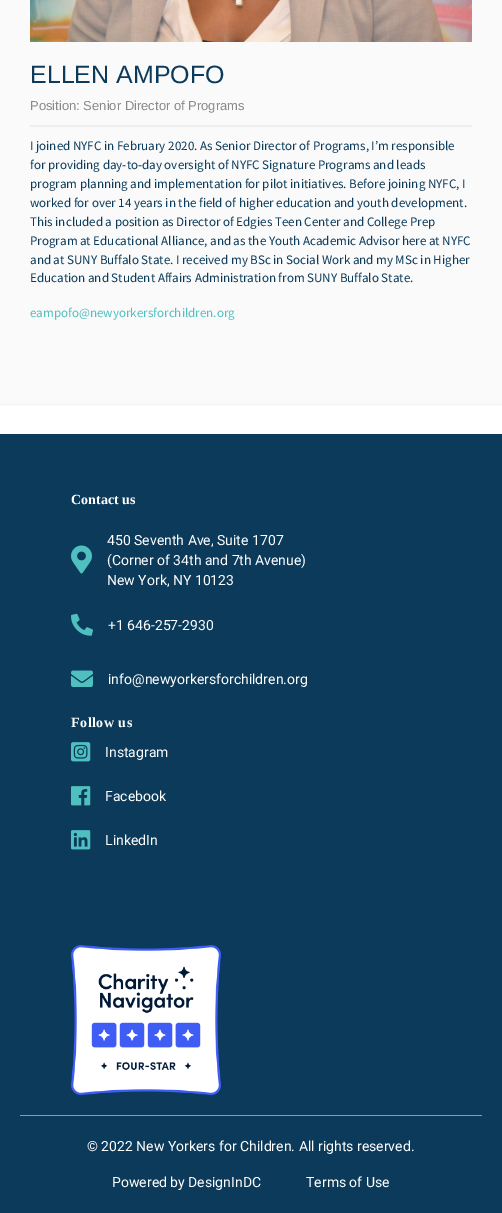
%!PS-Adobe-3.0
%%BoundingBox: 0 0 502 1213
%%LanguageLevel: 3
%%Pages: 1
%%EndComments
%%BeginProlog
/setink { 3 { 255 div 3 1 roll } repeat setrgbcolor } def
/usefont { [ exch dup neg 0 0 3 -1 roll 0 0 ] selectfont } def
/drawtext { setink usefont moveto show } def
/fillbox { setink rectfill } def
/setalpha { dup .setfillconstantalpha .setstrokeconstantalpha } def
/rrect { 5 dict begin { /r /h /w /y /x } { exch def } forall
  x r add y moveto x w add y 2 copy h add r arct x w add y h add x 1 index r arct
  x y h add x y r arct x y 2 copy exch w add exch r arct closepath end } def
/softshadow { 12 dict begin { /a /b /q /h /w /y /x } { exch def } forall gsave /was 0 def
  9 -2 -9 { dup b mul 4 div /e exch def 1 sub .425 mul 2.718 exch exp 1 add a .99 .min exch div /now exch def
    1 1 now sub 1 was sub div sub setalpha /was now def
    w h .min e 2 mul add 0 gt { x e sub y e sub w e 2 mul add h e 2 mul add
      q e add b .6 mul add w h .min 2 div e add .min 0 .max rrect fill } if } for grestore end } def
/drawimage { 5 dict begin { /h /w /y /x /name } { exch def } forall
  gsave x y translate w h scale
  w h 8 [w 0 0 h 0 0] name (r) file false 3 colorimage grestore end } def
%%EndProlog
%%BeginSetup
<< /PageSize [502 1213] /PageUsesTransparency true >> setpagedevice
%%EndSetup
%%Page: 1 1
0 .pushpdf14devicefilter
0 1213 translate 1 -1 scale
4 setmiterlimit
0 0 502 1213 255 255 255 fillbox
0 0 0 setink
0 -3 502 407 0 1 0.15 softshadow
0 0 502 404 250 250 250 fillbox
(assets/img1.rgb) 30 0 442 42 drawimage
30 125 442 2 238 238 238 fillbox
(ELLEN AMPOFO) 30 83 /LiberationSans-Regular 25 11 58 90 drawtext
(Position: Senior Director of Programs) 30 110 /LiberationSans-Regular 13 136 136 136 drawtext
(I joined NYFC in February 2020. As Senior Director of Programs, I’m responsible) 30 150 /SourceSansPro-Regular 13 11 58 90 drawtext
(for providing day-to-day oversight of NYFC Signature Programs and leads) 30 169 /SourceSansPro-Regular 13 11 58 90 drawtext
(program planning and implementation for pilot initiatives. Before joining NYFC, I) 30 188 /SourceSansPro-Regular 13 11 58 90 drawtext
(worked for over 14 years in the field of higher education and youth development.) 30 207 /SourceSansPro-Regular 13 11 58 90 drawtext
(This included a position as Director of Edgies Teen Center and College Prep) 30 226 /SourceSansPro-Regular 13 11 58 90 drawtext
(Program at Educational Alliance, and as the Youth Academic Advisor here at NYFC) 30 245 /SourceSansPro-Regular 13 11 58 90 drawtext
(and at SUNY Buffalo State. I received my BSc in Social Work and my MSc in Higher) 30 264 /SourceSansPro-Regular 13 11 58 90 drawtext
(Education and Student Affairs Administration from SUNY Buffalo State.) 30 282 /SourceSansPro-Regular 13 11 58 90 drawtext
(eampofo@newyorkersforchildren.org) 30 317 /SourceSansPro-Regular 13 79 191 192 drawtext
0 434 502 779 11 58 90 fillbox
(Contact us) 71 504 /LiberationSerif-Bold 14 255 255 255 drawtext
(assets/img2.rgb) 71 545 21 29 drawimage
(450 Seventh Ave, Suite 1707) 107 545 /Roboto-Regular 14 255 255 255 drawtext
(\(Corner of 34th and 7th Avenue\)) 107 565 /Roboto-Regular 14 255 255 255 drawtext
(New York, NY 10123) 107 585 /Roboto-Regular 14 255 255 255 drawtext
(assets/img3.rgb) 71 613 22 23 drawimage
(+1 646-257-2930) 108 630 /Roboto-Regular 14 255 255 255 drawtext
(assets/img4.rgb) 71 670 22 17 drawimage
(info@newyorkersforchildren.org) 108 684 /Roboto-Regular 14 255 255 255 drawtext
/LiberationSerif-Bold 14 usefont
71 727 moveto 0.5 0 (Follow us) ashow
(assets/img5.rgb) 71 742 20 20 drawimage
(Instagram) 105 757 /Roboto-Regular 14 255 255 255 drawtext
(assets/img6.rgb) 71 786 20 20 drawimage
(Facebook) 105 801 /Roboto-Regular 14 255 255 255 drawtext
(assets/img7.rgb) 71 830 20 20 drawimage
(LinkedIn) 105 845 /Roboto-Regular 14 255 255 255 drawtext
(assets/img8.rgb) 71 945 150 150 drawimage
20 1115 462 1 133 157 172 fillbox
(© 2022 New Yorkers for Children. All rights reserved.) 87 1151 /Roboto-Regular 14 255 255 255 drawtext
(Powered by DesignInDC) 112 1187 /Roboto-Regular 14 255 255 255 drawtext
(Terms of Use) 306 1187 /Roboto-Regular 14 255 255 255 drawtext
.poppdf14devicefilter showpage
%%EOF
